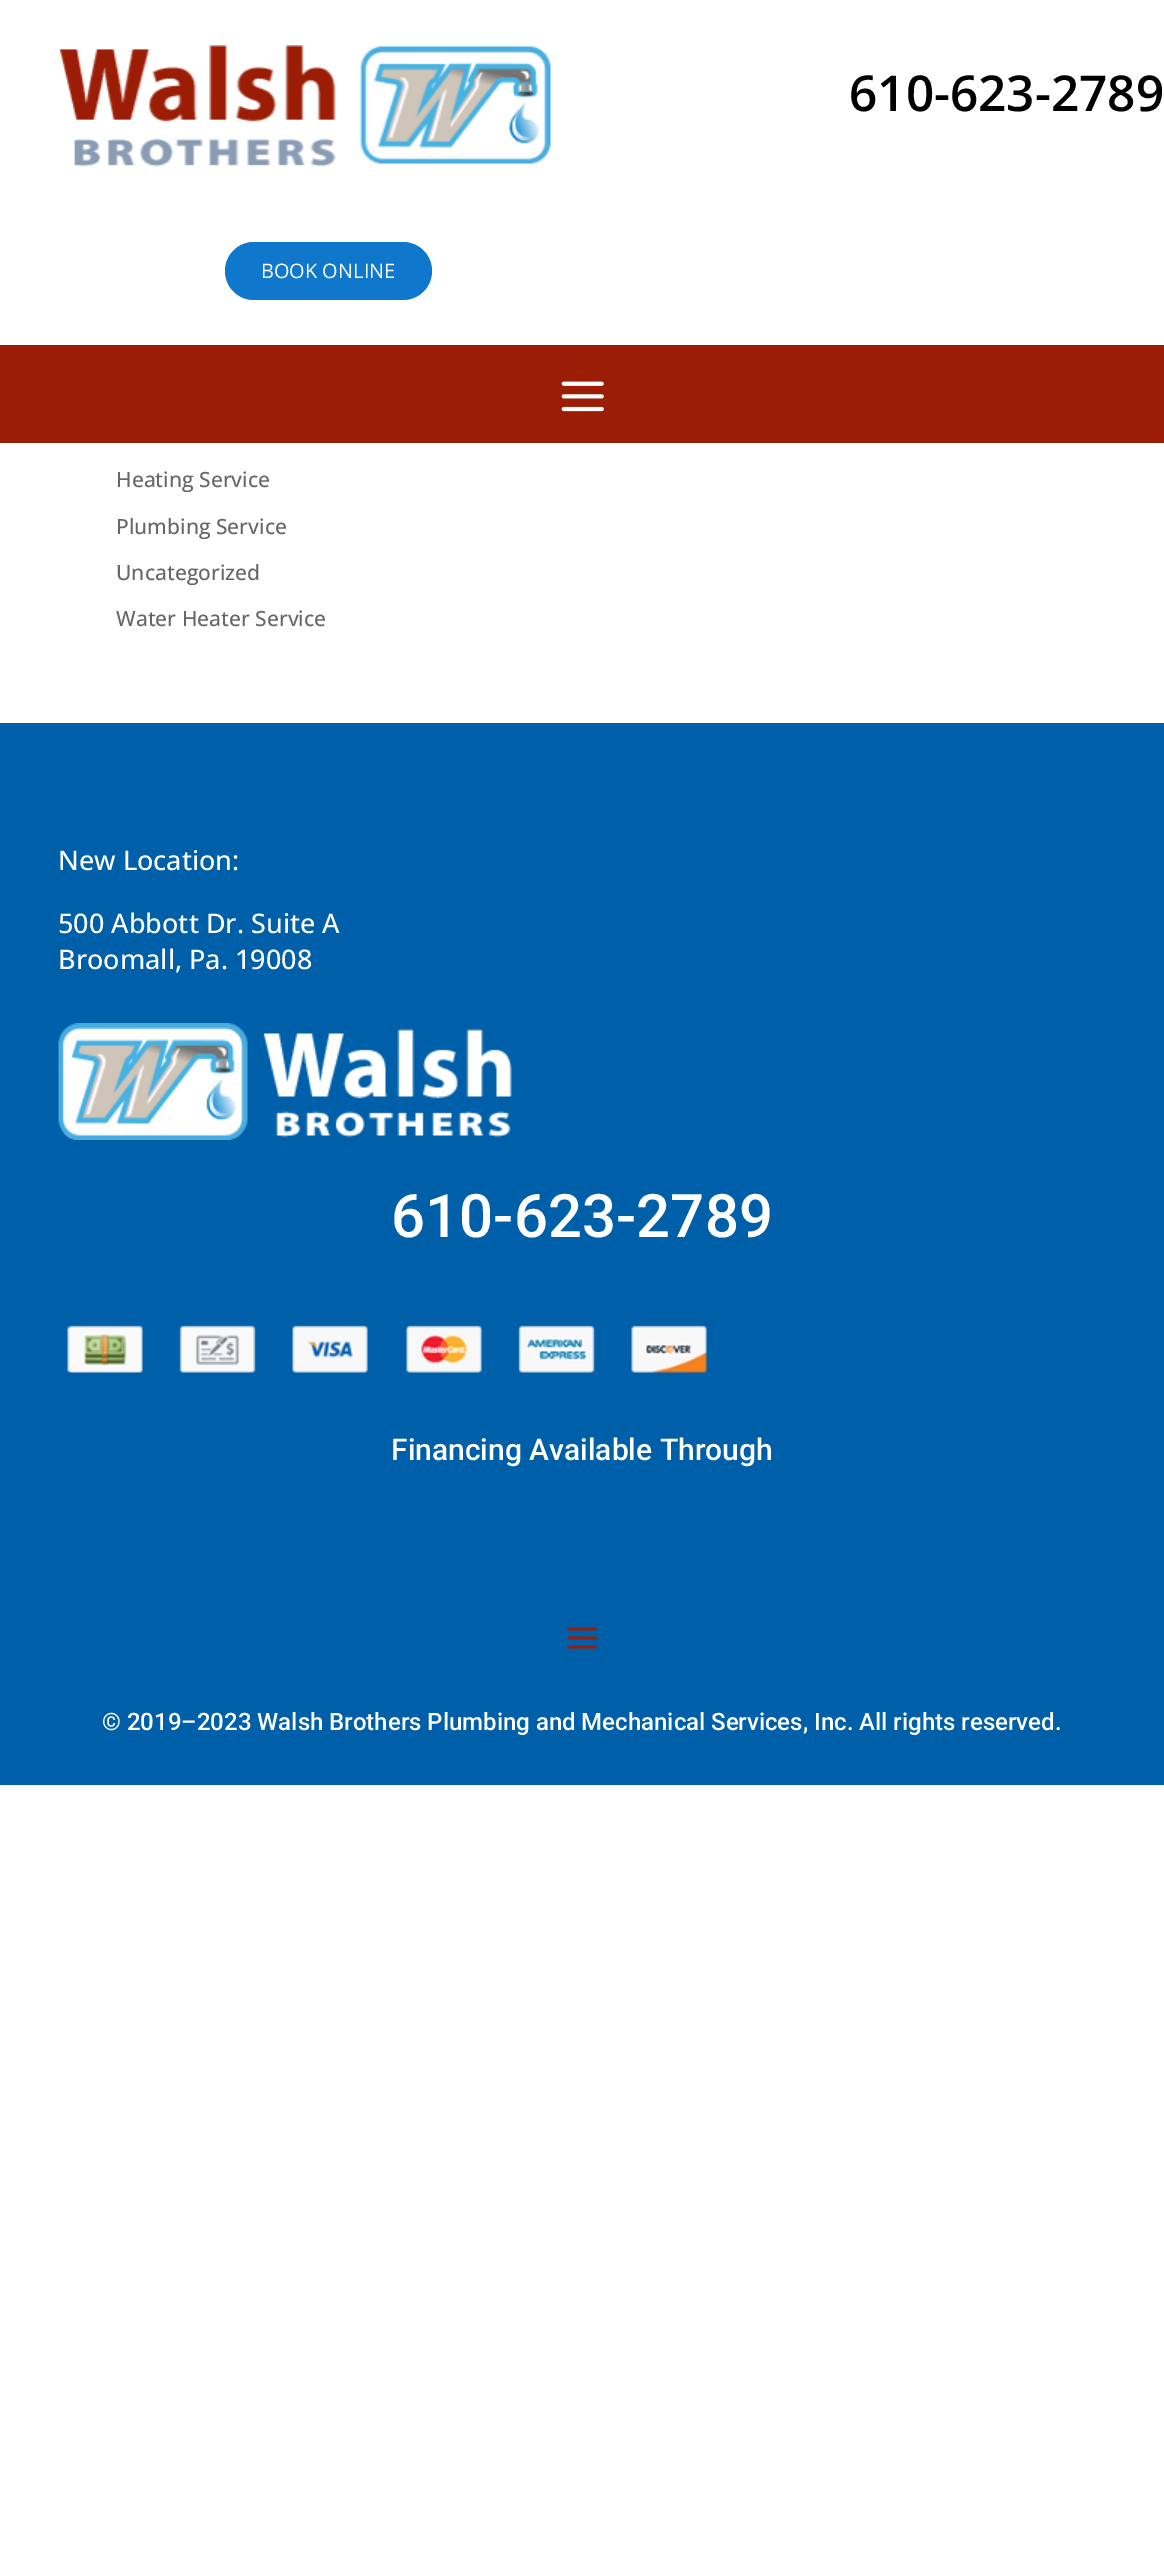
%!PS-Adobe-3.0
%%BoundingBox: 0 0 1164 2564
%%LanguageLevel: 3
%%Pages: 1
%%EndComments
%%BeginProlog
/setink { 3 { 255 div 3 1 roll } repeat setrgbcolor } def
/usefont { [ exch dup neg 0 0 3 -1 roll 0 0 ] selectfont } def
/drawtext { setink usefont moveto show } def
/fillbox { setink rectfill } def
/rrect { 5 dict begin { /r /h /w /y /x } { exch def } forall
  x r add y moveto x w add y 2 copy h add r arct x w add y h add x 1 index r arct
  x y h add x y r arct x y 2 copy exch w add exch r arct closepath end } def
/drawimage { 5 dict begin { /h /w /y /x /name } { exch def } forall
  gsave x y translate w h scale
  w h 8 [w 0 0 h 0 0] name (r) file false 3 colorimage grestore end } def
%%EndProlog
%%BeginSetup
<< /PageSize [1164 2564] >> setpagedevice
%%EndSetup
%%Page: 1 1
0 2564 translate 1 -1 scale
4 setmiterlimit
0 0 1164 2564 255 255 255 fillbox
(assets/img1.rgb) 60 45 491 122 drawimage
(610-623-2789) 849 111 /OpenSans-SemiBold 49.5 0 0 0 drawtext
15 119 204 setink
225 242 207 58 29 rrect fill
(BOOK ONLINE) 261 278 /OpenSans-Regular 20 255 255 255 drawtext
0 345 1164 98 155 29 5 fillbox
(assets/img2.rgb) 561 381 43 31 drawimage
(Heating Service) 116 487 /OpenSans-Medium 21 102 102 102 drawtext
(Plumbing Service) 116 534 /OpenSans-Medium 21 102 102 102 drawtext
(Uncategorized) 116 580 /OpenSans-Medium 21 102 102 102 drawtext
(Water Heater Service) 116 626 /OpenSans-Medium 21 102 102 102 drawtext
0 723 1164 1062 0 95 169 fillbox
(New Location:) 58 870 /OpenSans-Medium 27 255 255 255 drawtext
(500 Abbott Dr. Suite A) 58 933 /OpenSans-Medium 27 255 255 255 drawtext
(Broomall, Pa. 19008) 58 969 /OpenSans-Medium 27 255 255 255 drawtext
(assets/img3.rgb) 58 1023 454 117 drawimage
(610-623-2789) 391 1237 /Roboto-Medium 60 255 255 255 drawtext
(assets/img4.rgb) 67 1325 640 48 drawimage
(Financing Available Through) 391 1460 /Roboto-Medium 30 255 255 255 drawtext
(assets/img5.rgb) 567 1627 30 22 drawimage
(© 2019–2023 Walsh Brothers Plumbing and Mechanical Services, Inc. All rights reserved.) 102 1730 /Roboto-Medium 24 255 255 255 drawtext
showpage
%%EOF
